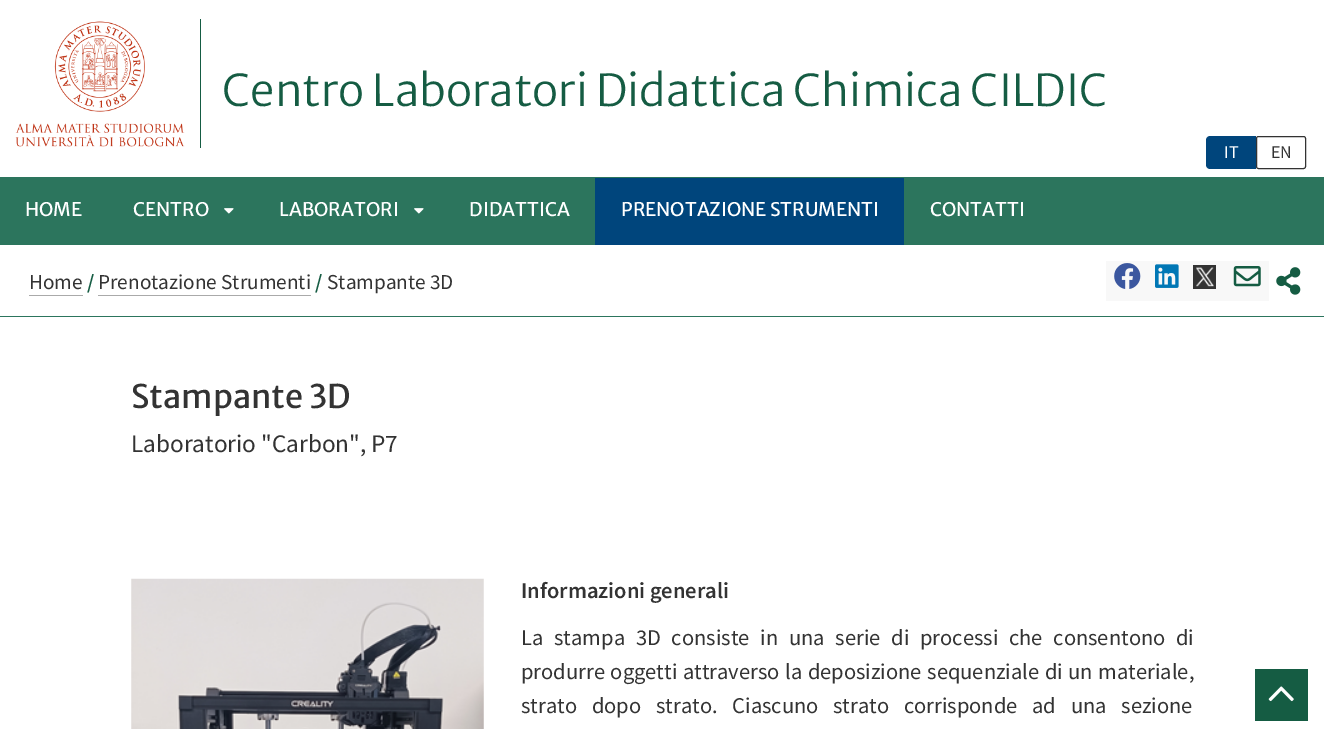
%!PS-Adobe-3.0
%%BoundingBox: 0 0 1324 729
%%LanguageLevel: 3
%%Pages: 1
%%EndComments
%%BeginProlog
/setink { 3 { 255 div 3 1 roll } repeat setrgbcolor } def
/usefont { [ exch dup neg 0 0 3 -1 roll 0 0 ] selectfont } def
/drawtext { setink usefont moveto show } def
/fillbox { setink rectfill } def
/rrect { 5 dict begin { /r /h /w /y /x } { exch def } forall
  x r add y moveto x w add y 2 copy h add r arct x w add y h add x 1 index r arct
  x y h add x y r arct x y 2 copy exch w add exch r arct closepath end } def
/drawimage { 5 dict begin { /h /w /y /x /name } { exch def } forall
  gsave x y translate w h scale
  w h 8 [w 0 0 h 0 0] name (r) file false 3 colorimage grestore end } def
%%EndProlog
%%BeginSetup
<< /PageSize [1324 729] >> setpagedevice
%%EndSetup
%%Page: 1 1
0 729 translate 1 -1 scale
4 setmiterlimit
0 0 1324 729 255 255 255 fillbox
(assets/img1.rgb) 15 21 170 126 drawimage
200 19 1 129 21 92 67 fillbox
(Centro Laboratori Didattica Chimica CILDIC) 222 106 /MerriweatherSans-Light 43.75 21 92 67 drawtext
0 69 124 setink
1210 136 moveto 1256 136 lineto 1256 169 lineto 1210 169 lineto 1208 169 1206 167 1206 165 curveto 1206 140 lineto 1206 138 1208 136 1210 136 curveto closepath fill
(IT) 1224 158 /SourceSansPro-Regular 18 255 255 255 drawtext
51 51 51 setink
1256.5 136.5 49 32 2 rrect stroke
(EN) 1271 158 /SourceSansPro-Regular 18 51 51 51 drawtext
0 177 1324 68 44 117 93 fillbox
(HOME) 25 216 /MerriweatherSans-Regular 18.75 255 255 255 drawtext
(CENTRO) 133 216 /MerriweatherSans-Regular 18.75 255 255 255 drawtext
(assets/img2.rgb) 224 208 10 6 drawimage
(LABORATORI) 279 216 /MerriweatherSans-Regular 18.75 255 255 255 drawtext
(assets/img2.rgb) 414 208 10 6 drawimage
(DIDATTICA) 469 216 /MerriweatherSans-Regular 18.75 255 255 255 drawtext
595 178 309 67 0 69 124 fillbox
(PRENOTAZIONE STRUMENTI) 621 216 /MerriweatherSans-Regular 18.75 255 255 255 drawtext
(CONTATTI) 930 216 /MerriweatherSans-Regular 18.75 255 255 255 drawtext
0 316 1324 1 44 117 93 fillbox
(Home) 29 289 /SourceSansPro-Regular 21.25 51 51 51 drawtext
29 295 54 1 170 170 170 fillbox
(/) 87 289 /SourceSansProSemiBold-SemiBold 21.25 21 92 67 drawtext
(Prenotazione Strumenti) 98 289 /SourceSansPro-Regular 21.25 51 51 51 drawtext
98 295 213 1 170 170 170 fillbox
(/) 315 289 /SourceSansProSemiBold-SemiBold 21.25 21 92 67 drawtext
(Stampante 3D) 327 289 /SourceSansPro-Regular 21.25 51 51 51 drawtext
1106 261 163 40 248 248 248 fillbox
(assets/img3.rgb) 1114 263 27 26 drawimage
(assets/img4.rgb) 1155 264 24 24 drawimage
1193 265 23 24 51 51 51 fillbox
(assets/img5.rgb) 1196 267 18 20 drawimage
(assets/img6.rgb) 1233 266 28 21 drawimage
(assets/img7.rgb) 1276 267 25 28 drawimage
(Stampante 3D) 131 408 /MerriweatherSans-Regular 32.5 51 51 51 drawtext
(Laboratorio "Carbon", P7) 131 452 /SourceSansPro-Regular 25.25 51 51 51 drawtext
(assets/img8.rgb) 131 578 353 151 drawimage
(Informazioni generali) 521 598 /SourceSansProSemiBold-SemiBold 22.5 51 51 51 drawtext
/SourceSansPro-Regular 22.5 usefont
521 645 moveto 6.25 0 32 (La stampa 3D consiste in una serie di processi che consentono di) widthshow
521 679 moveto 1 0 32 (produrre oggetti attraverso la deposizione sequenziale di un materiale,) widthshow
521 713 moveto 10.25 0 32 (strato dopo strato. Ciascuno strato corrisponde ad una sezione) widthshow
1255 669 53 52 21 92 67 fillbox
(assets/img9.rgb) 1268 686 26 16 drawimage
showpage
%%EOF
